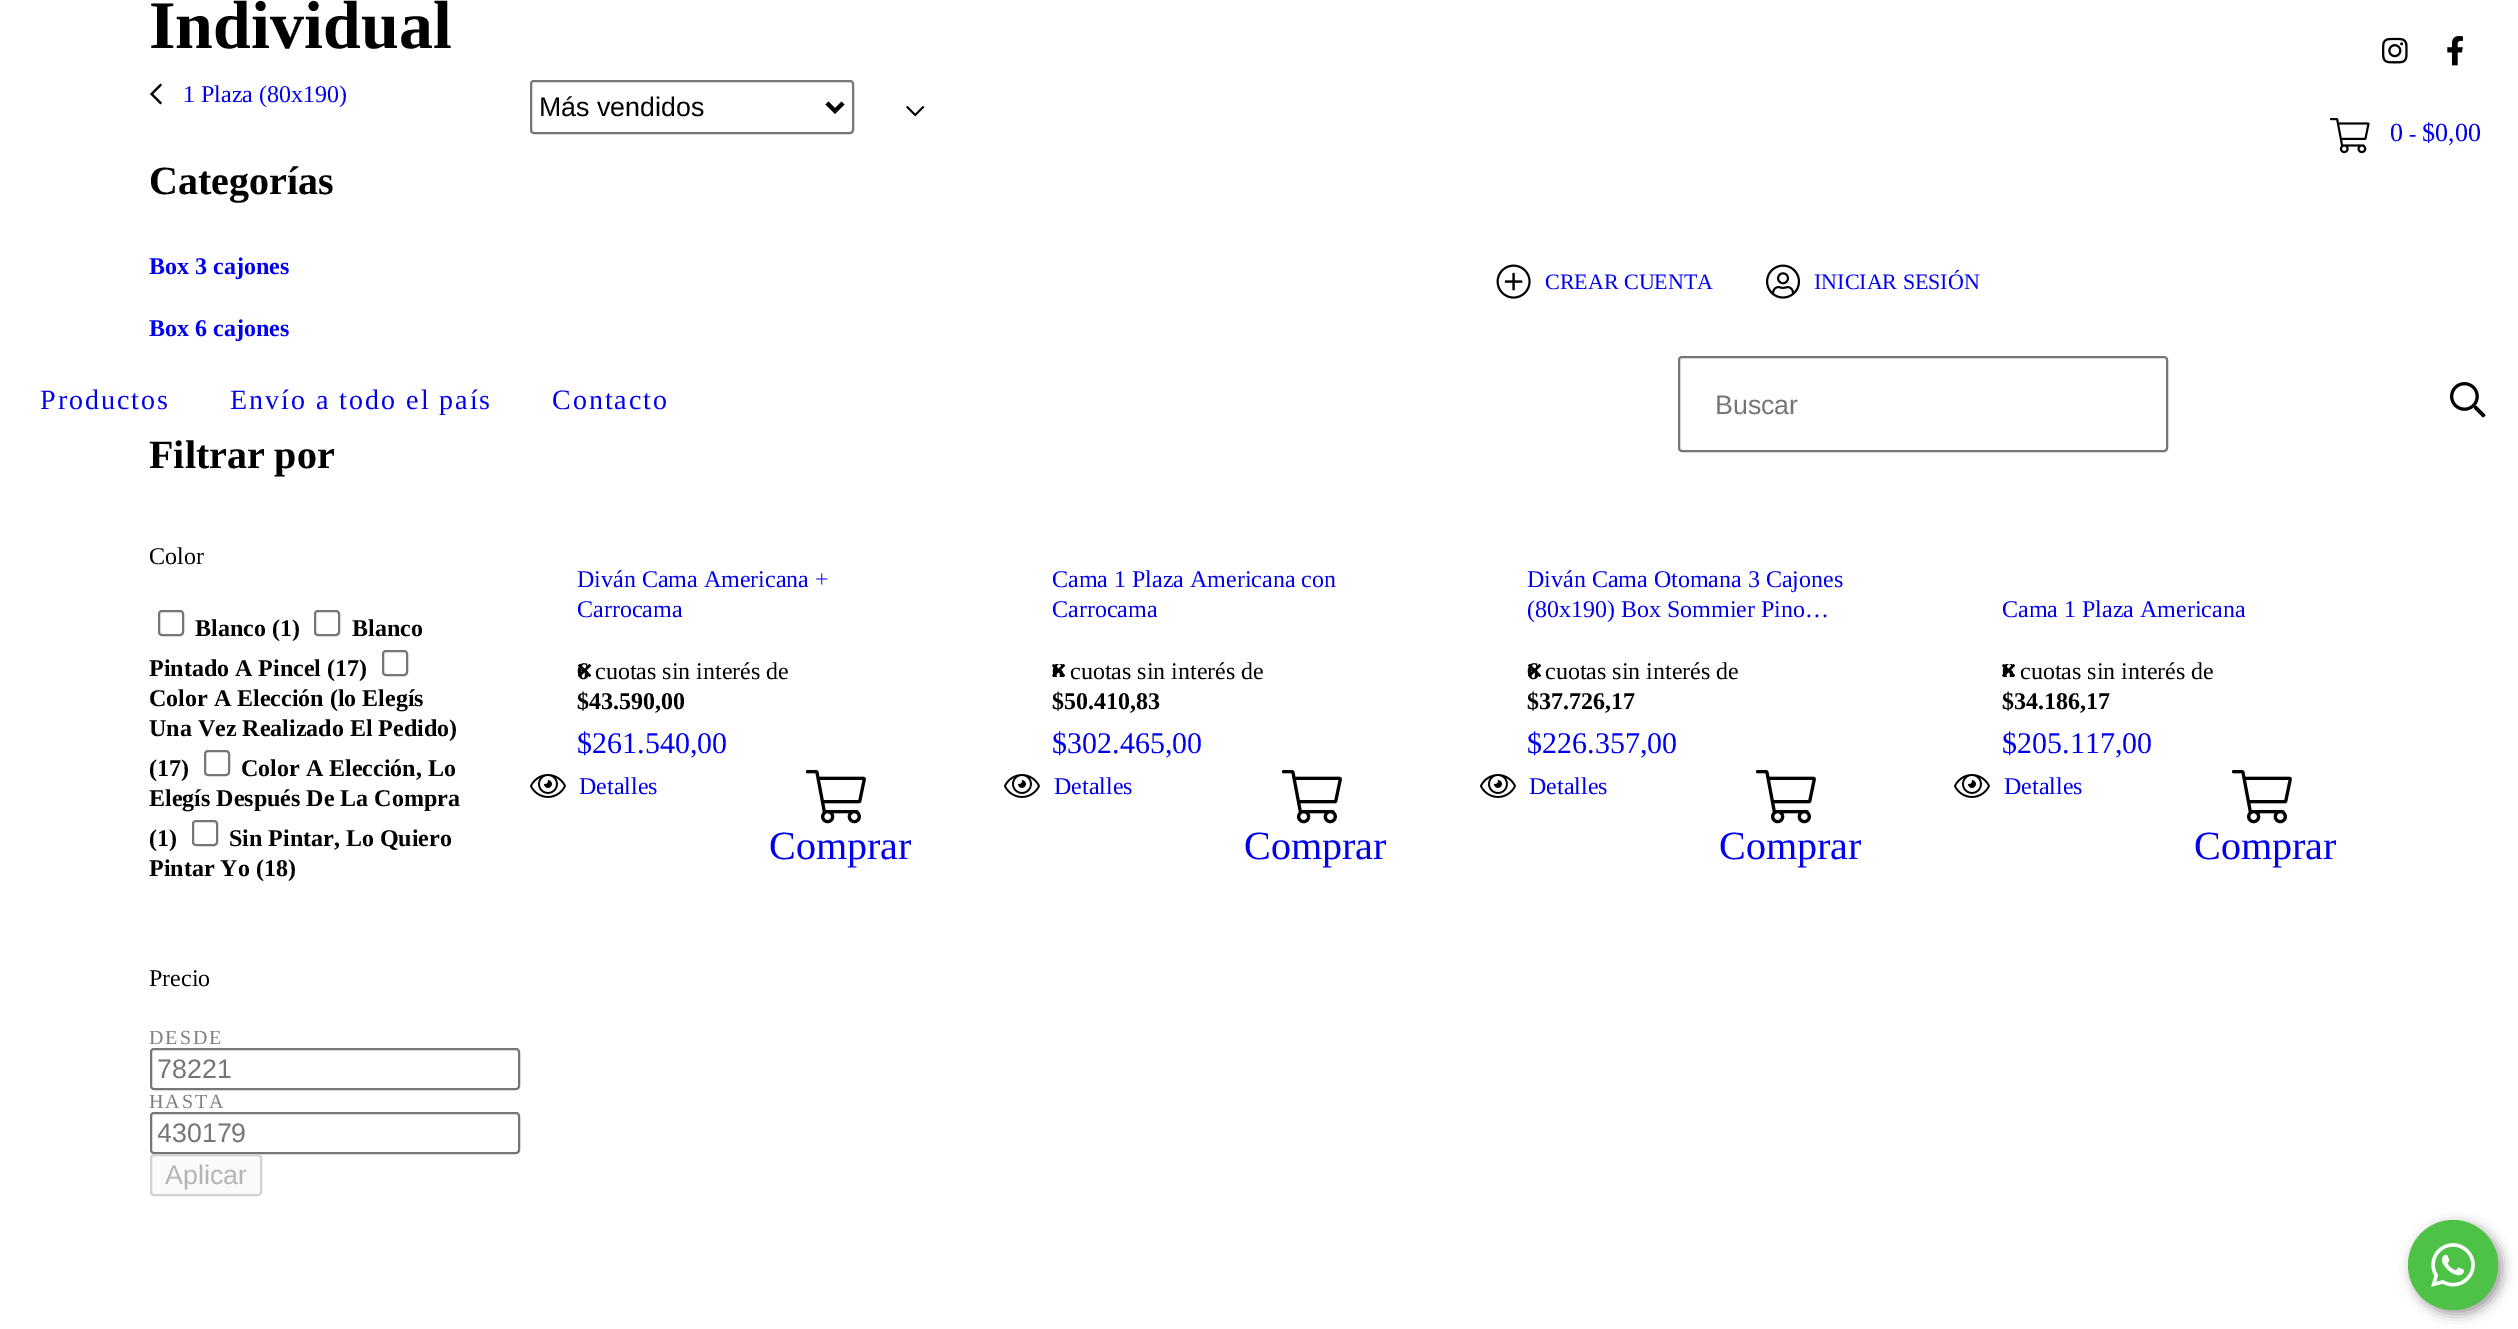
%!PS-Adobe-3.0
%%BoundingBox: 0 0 2518 1329
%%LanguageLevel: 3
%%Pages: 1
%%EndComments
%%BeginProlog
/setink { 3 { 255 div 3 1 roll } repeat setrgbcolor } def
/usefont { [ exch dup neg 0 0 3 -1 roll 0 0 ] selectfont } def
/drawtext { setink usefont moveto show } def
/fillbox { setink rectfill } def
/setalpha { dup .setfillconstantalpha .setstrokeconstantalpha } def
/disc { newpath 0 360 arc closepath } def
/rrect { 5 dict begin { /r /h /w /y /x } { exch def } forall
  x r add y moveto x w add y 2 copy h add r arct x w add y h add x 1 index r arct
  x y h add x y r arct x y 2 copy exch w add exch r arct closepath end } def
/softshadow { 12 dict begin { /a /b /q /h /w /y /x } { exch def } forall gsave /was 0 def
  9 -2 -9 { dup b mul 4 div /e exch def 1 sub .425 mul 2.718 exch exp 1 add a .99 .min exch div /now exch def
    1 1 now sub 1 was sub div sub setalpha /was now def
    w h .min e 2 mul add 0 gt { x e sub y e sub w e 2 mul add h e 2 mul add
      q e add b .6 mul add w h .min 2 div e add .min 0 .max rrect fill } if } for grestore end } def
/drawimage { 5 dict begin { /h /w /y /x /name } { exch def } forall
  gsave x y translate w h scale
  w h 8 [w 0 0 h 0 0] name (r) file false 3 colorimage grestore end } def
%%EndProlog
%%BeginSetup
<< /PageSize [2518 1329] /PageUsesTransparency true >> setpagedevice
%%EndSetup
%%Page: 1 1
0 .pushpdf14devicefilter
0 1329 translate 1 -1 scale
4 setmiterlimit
0 0 2518 1329 255 255 255 fillbox
(Individual) 149 48 /LiberationSerif-Bold 68 0 0 0 drawtext
(assets/img1.rgb) 150 83 12 22 drawimage
(1 Plaza \(80x190\)) 183 102 /LiberationSerif-Regular 24 0 0 238 drawtext
(Categorías) 149 194 /LiberationSerif-Bold 40 0 0 0 drawtext
(Box 3 cajones) 149 274 /LiberationSerif-Bold 24 0 0 238 drawtext
(Box 6 cajones) 149 336 /LiberationSerif-Bold 24 0 0 238 drawtext
(Filtrar por) 149 468 /LiberationSerif-Bold 40 0 0 0 drawtext
(Color) 149 564 /LiberationSerif-Regular 24 0 0 0 drawtext
118 118 118 setink
2 setlinewidth
315 611 24 24 3 rrect stroke
(Blanco) 352 636 /LiberationSerif-Bold 24 0 0 0 drawtext
(Pintado A Pincel \(17\)) 149 676 /LiberationSerif-Bold 24 0 0 0 drawtext
118 118 118 setink
159 611 24 24 3 rrect stroke
(Blanco \(1\)) 195 636 /LiberationSerif-Bold 24 0 0 0 drawtext
118 118 118 setink
383 651 24 24 3 rrect stroke
(Color A Elección \(lo Elegís) 149 706 /LiberationSerif-Bold 24 0 0 0 drawtext
(Una Vez Realizado El Pedido\)) 149 736 /LiberationSerif-Bold 24 0 0 0 drawtext
(\(17\)) 149 776 /LiberationSerif-Bold 24 0 0 0 drawtext
118 118 118 setink
205 751 24 24 3 rrect stroke
(Color A Elección, Lo) 241 776 /LiberationSerif-Bold 24 0 0 0 drawtext
(Elegís Después De La Compra) 149 806 /LiberationSerif-Bold 24 0 0 0 drawtext
(\(1\)) 149 846 /LiberationSerif-Bold 24 0 0 0 drawtext
118 118 118 setink
193 821 24 24 3 rrect stroke
(Sin Pintar, Lo Quiero) 229 846 /LiberationSerif-Bold 24 0 0 0 drawtext
(Pintar Yo \(18\)) 149 876 /LiberationSerif-Bold 24 0 0 0 drawtext
(Precio) 149 986 /LiberationSerif-Regular 24 0 0 0 drawtext
/LiberationSerif-Regular 20 usefont
128 128 128 setink
149 1044 moveto 2 0 (DESDE) ashow
118 118 118 setink
151 1049 368 40 3 rrect stroke
(78221) 157 1078 /LiberationSans-Regular 26.75 117 117 117 drawtext
/LiberationSerif-Regular 20 usefont
128 128 128 setink
149 1108 moveto 2 0 (HASTA) ashow
118 118 118 setink
151 1113 368 40 3 rrect stroke
gsave
158 1118 324 30 rectclip
(430179) 157 1142 /LiberationSans-Regular 26.75 117 117 117 drawtext
grestore
250 250 250 setink
151 1155 110 40 3 rrect gsave fill grestore
210 210 210 setink
stroke
(Aplicar) 165 1184 /LiberationSans-Regular 26.75 180 180 180 drawtext
118 118 118 setink
531 81 322 52 3 rrect stroke
0 0 0 setink
4 setlinewidth
827 103 moveto 835 111 lineto 843 103 lineto stroke
(Más vendidos) 539 116 /LiberationSans-Regular 26.75 0 0 0 drawtext
(assets/img2.rgb) 906 106 19 11 drawimage
(Diván Cama Americana +) 577 587 /LiberationSerif-Regular 24 0 0 238 drawtext
(Carrocama) 577 617 /LiberationSerif-Regular 24 0 0 238 drawtext
(6) 577 679 /LiberationSerif-Bold 24 0 0 0 drawtext
(cuotas sin interés de) 595 679 /LiberationSerif-Regular 24 0 0 0 drawtext
($43.590,00) 577 709 /LiberationSerif-Bold 24 0 0 0 drawtext
($261.540,00) 577 753 /LiberationSerif-Regular 30 0 0 238 drawtext
(assets/img3.rgb) 578 664 14 13 drawimage
(assets/img4.rgb) 530 774 36 24 drawimage
(Detalles) 579 794 /LiberationSerif-Regular 24 0 0 238 drawtext
(assets/img5.rgb) 806 770 60 54 drawimage
(Comprar) 769 859 /LiberationSerif-Regular 40 0 0 238 drawtext
(Cama 1 Plaza Americana con) 1052 587 /LiberationSerif-Regular 24 0 0 238 drawtext
(Carrocama) 1052 617 /LiberationSerif-Regular 24 0 0 238 drawtext
(cuotas sin interés de) 1070 679 /LiberationSerif-Regular 24 0 0 0 drawtext
($50.410,83) 1052 709 /LiberationSerif-Bold 24 0 0 0 drawtext
($302.465,00) 1052 753 /LiberationSerif-Regular 30 0 0 238 drawtext
(assets/img6.rgb) 1052 664 14 13 drawimage
(assets/img4.rgb) 1004 774 36 24 drawimage
(Detalles) 1054 794 /LiberationSerif-Regular 24 0 0 238 drawtext
(assets/img5.rgb) 1282 770 60 54 drawimage
(Comprar) 1244 859 /LiberationSerif-Regular 40 0 0 238 drawtext
(Diván Cama Otomana 3 Cajones) 1527 587 /LiberationSerif-Regular 24 0 0 238 drawtext
(\(80x190\) Box Sommier Pino…) 1527 617 /LiberationSerif-Regular 24 0 0 238 drawtext
(6) 1527 679 /LiberationSerif-Bold 24 0 0 0 drawtext
(cuotas sin interés de) 1545 679 /LiberationSerif-Regular 24 0 0 0 drawtext
($37.726,17) 1527 709 /LiberationSerif-Bold 24 0 0 0 drawtext
($226.357,00) 1527 753 /LiberationSerif-Regular 30 0 0 238 drawtext
(assets/img3.rgb) 1528 664 14 13 drawimage
(assets/img4.rgb) 1480 774 36 24 drawimage
(Detalles) 1529 794 /LiberationSerif-Regular 24 0 0 238 drawtext
(assets/img5.rgb) 1756 770 60 54 drawimage
(Comprar) 1719 859 /LiberationSerif-Regular 40 0 0 238 drawtext
(Cama 1 Plaza Americana) 2002 617 /LiberationSerif-Regular 24 0 0 238 drawtext
(cuotas sin interés de) 2020 679 /LiberationSerif-Regular 24 0 0 0 drawtext
($34.186,17) 2002 709 /LiberationSerif-Bold 24 0 0 0 drawtext
($205.117,00) 2002 753 /LiberationSerif-Regular 30 0 0 238 drawtext
(assets/img6.rgb) 2002 664 14 13 drawimage
(assets/img4.rgb) 1954 774 36 24 drawimage
(Detalles) 2004 794 /LiberationSerif-Regular 24 0 0 238 drawtext
(assets/img5.rgb) 2232 770 60 54 drawimage
(Comprar) 2194 859 /LiberationSerif-Regular 40 0 0 238 drawtext
(assets/img7.rgb) 2382 37 26 27 drawimage
(assets/img8.rgb) 2447 36 16 30 drawimage
(assets/img9.rgb) 2330 118 40 36 drawimage
(0) 2390 141 /LiberationSerif-Regular 26 0 0 238 drawtext
(-) 2409 141 /LiberationSerif-Regular 22 0 0 238 drawtext
($0,00) 2422 141 /LiberationSerif-Regular 26 0 0 238 drawtext
(assets/img10.rgb) 1496 264 35 35 drawimage
(CREAR CUENTA) 1545 289 /LiberationSerif-Regular 22 0 0 238 drawtext
(assets/img11.rgb) 1766 264 35 35 drawimage
(INICIAR SESIÓN) 1814 289 /LiberationSerif-Regular 22 0 0 238 drawtext
/LiberationSerif-Regular 28 usefont
40 409 moveto 2 0 (Productos) ashow
230 409 moveto 2 0 (Envío a todo el país) ashow
552 409 moveto 2 0 (Contacto) ashow
118 118 118 setink
2 setlinewidth
1679 357 488 94 3 rrect stroke
(Buscar) 1715 414 /LiberationSans-Regular 26.75 117 117 117 drawtext
(assets/img12.rgb) 2450 382 36 36 drawimage
0 0 0 setink
2412 1224 90 90 45 6 0.4 softshadow
77 194 71 setink
2453 1265 45 disc fill
(assets/img13.rgb) 2431 1243 44 44 drawimage
.poppdf14devicefilter showpage
%%EOF
